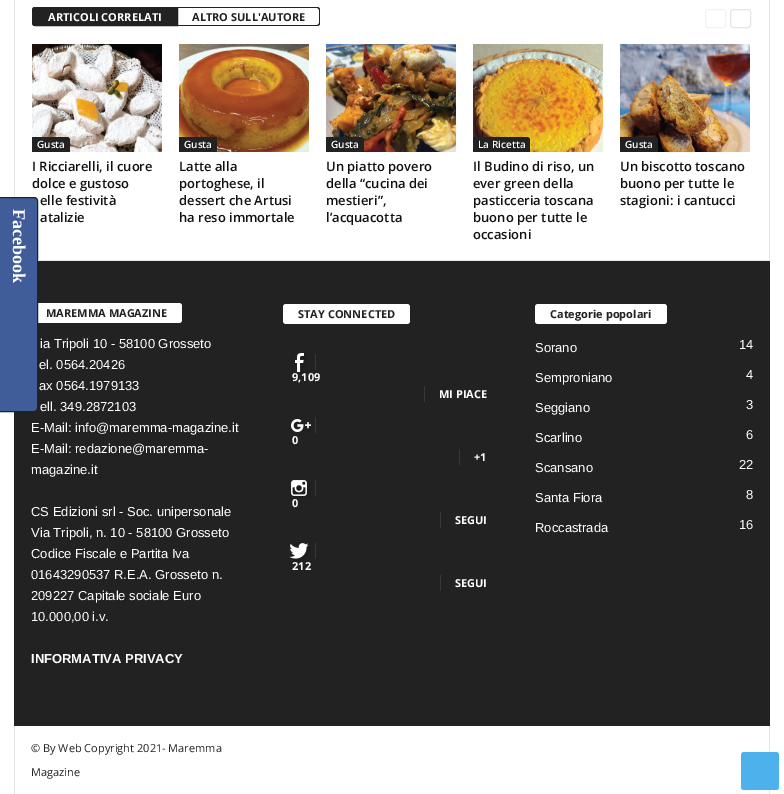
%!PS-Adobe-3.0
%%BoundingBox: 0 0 784 794
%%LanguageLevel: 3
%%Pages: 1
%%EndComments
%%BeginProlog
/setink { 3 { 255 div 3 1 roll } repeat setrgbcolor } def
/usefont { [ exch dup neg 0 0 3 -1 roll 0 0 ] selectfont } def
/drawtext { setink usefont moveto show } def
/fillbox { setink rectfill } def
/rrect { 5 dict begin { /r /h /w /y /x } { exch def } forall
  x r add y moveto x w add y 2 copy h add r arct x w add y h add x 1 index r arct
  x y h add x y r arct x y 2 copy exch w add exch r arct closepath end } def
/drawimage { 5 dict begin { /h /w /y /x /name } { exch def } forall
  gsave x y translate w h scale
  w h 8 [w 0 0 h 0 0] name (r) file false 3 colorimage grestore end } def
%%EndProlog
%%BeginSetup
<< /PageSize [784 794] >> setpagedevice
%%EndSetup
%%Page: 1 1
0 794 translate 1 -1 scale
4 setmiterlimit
0 0 784 794 255 255 255 fillbox
14 261 756 465 34 34 34 fillbox
255 255 255 setink
31 303 151 20 3 rrect fill
64 93 154 setink
-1.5 197.5 moveto 34 197.5 lineto 36 197.5 37.5 199 37.5 201 curveto 37.5 408 lineto 37.5 410 36 411.5 34 411.5 curveto -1.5 411.5 lineto closepath gsave fill grestore
34 34 34 setink
stroke
/LiberationSerif-Bold 18 usefont
255 255 255 setink
gsave 13 209 translate 90 rotate 0 0 moveto (Facebook) show grestore
38 260 732 1 230 230 230 fillbox
14 0 1 197 230 230 230 fillbox
34 34 34 setink
35 7.5 moveto 177.5 7.5 lineto 177.5 25.5 lineto 35 25.5 lineto 33.5 25.5 32.5 24.5 32.5 23 curveto 32.5 10 lineto 32.5 8.5 33.5 7.5 35 7.5 curveto closepath gsave fill grestore
stroke
(ARTICOLI CORRELATI) 48 21 /OpenSans-Bold 11 255 255 255 drawtext
34 34 34 setink
178 7 moveto 317 7 lineto 319 7 320 8 320 10 curveto 320 23 lineto 320 25 319 26 317 26 curveto 178 26 lineto closepath 178 8 moveto 317 8 lineto 318 8 319 9 319 10 curveto 319 23 lineto 319 24 318 25 317 25 curveto 178 25 lineto closepath eofill
(ALTRO SULL'AUTORE) 192 21 /OpenSans-Bold 11 34 34 34 drawtext
243 243 243 setink
705.5 9.5 20 18 2.5 rrect stroke
230 230 230 setink
730.5 9.5 20 18 2.5 rrect stroke
(assets/img1.rgb) 32 44 130 108 drawimage
34 34 34 setink
32 137 moveto 67 137 lineto 68.5 137 70 138.5 70 140 curveto 70 152 lineto 32 152 lineto closepath fill
(Gusta) 37 148 /OpenSans-SemiBold 10 255 255 255 drawtext
(I Ricciarelli, il cuore) 32 171 /OpenSans-SemiBold 13 17 17 17 drawtext
(dolce e gustoso) 32 188 /OpenSans-SemiBold 13 17 17 17 drawtext
(elle festività) 40 205 /OpenSans-SemiBold 13 17 17 17 drawtext
(atalizie) 40 222 /OpenSans-SemiBold 13 17 17 17 drawtext
(assets/img2.rgb) 179 44 130 108 drawimage
34 34 34 setink
179 137 moveto 214 137 lineto 215.5 137 217 138.5 217 140 curveto 217 152 lineto 179 152 lineto closepath fill
(Gusta) 184 148 /OpenSans-SemiBold 10 255 255 255 drawtext
(Latte alla) 179 171 /OpenSans-SemiBold 13 17 17 17 drawtext
(portoghese, il) 179 188 /OpenSans-SemiBold 13 17 17 17 drawtext
(dessert che Artusi) 179 205 /OpenSans-SemiBold 13 17 17 17 drawtext
(ha reso immortale) 179 222 /OpenSans-SemiBold 13 17 17 17 drawtext
(assets/img3.rgb) 326 44 130 108 drawimage
34 34 34 setink
326 137 moveto 361 137 lineto 362.5 137 364 138.5 364 140 curveto 364 152 lineto 326 152 lineto closepath fill
(Gusta) 331 148 /OpenSans-SemiBold 10 255 255 255 drawtext
(Un piatto povero) 326 171 /OpenSans-SemiBold 13 17 17 17 drawtext
(della “cucina dei) 326 188 /OpenSans-SemiBold 13 17 17 17 drawtext
(mestieri”,) 326 205 /OpenSans-SemiBold 13 17 17 17 drawtext
(l’acquacotta) 326 222 /OpenSans-SemiBold 13 17 17 17 drawtext
(assets/img4.rgb) 473 44 130 108 drawimage
34 34 34 setink
473 137 moveto 527 137 lineto 528.5 137 530 138.5 530 140 curveto 530 152 lineto 473 152 lineto closepath fill
(La Ricetta) 478 148 /OpenSans-SemiBold 10 255 255 255 drawtext
(Il Budino di riso, un) 473 171 /OpenSans-SemiBold 13 17 17 17 drawtext
(ever green della) 473 188 /OpenSans-SemiBold 13 17 17 17 drawtext
(pasticceria toscana) 473 205 /OpenSans-SemiBold 13 17 17 17 drawtext
(buono per tutte le) 473 222 /OpenSans-SemiBold 13 17 17 17 drawtext
(occasioni) 473 239 /OpenSans-SemiBold 13 17 17 17 drawtext
(assets/img5.rgb) 620 44 130 108 drawimage
34 34 34 setink
620 137 moveto 655 137 lineto 656.5 137 658 138.5 658 140 curveto 658 152 lineto 620 152 lineto closepath fill
(Gusta) 625 148 /OpenSans-SemiBold 10 255 255 255 drawtext
(Un biscotto toscano) 620 171 /OpenSans-SemiBold 13 17 17 17 drawtext
(buono per tutte le) 620 188 /OpenSans-SemiBold 13 17 17 17 drawtext
(stagioni: i cantucci) 620 205 /OpenSans-SemiBold 13 17 17 17 drawtext
769 0 1 260 230 230 230 fillbox
(MAREMMA MAGAZINE) 46 317 /OpenSans-Bold 11 34 34 34 drawtext
(ia Tripoli 10 - 58100 Grosseto) 40 348 /LiberationSans-Regular 13 255 255 255 drawtext
(el. 0564.20426) 39 369 /LiberationSans-Regular 13 255 255 255 drawtext
(ax 0564.1979133) 39 390 /LiberationSans-Regular 13 255 255 255 drawtext
(ell. 349.2872103) 40 411 /LiberationSans-Regular 13 255 255 255 drawtext
(E-Mail: info@maremma-magazine.it) 31 432 /LiberationSans-Regular 13 255 255 255 drawtext
(E-Mail: redazione@maremma-) 31 453 /LiberationSans-Regular 13 255 255 255 drawtext
(magazine.it) 31 474 /LiberationSans-Regular 13 255 255 255 drawtext
(CS Edizioni srl - Soc. unipersonale) 31 516 /LiberationSans-Regular 13 255 255 255 drawtext
(Via Tripoli, n. 10 - 58100 Grosseto) 31 537 /LiberationSans-Regular 13 255 255 255 drawtext
(Codice Fiscale e Partita Iva) 31 558 /LiberationSans-Regular 13 255 255 255 drawtext
(01643290537 R.E.A. Grosseto n.) 31 579 /LiberationSans-Regular 13 255 255 255 drawtext
(209227 Capitale sociale Euro) 31 600 /LiberationSans-Regular 13 255 255 255 drawtext
(10.000,00 i.v.) 31 621 /LiberationSans-Regular 13 255 255 255 drawtext
(INFORMATIVA PRIVACY) 31 663 /LiberationSans-Bold 13 255 255 255 drawtext
283 304 127 20 3 rrect fill
(STAY CONNECTED) 298 318 /OpenSans-Bold 11 34 34 34 drawtext
(assets/img6.rgb) 295 353 13 21 drawimage
315 354 1 16 56 56 56 fillbox
(9,109) 292 381 /OpenSans-Bold 11 255 255 255 drawtext
424 386 1 16 56 56 56 fillbox
(MI PIACE) 439 398 /OpenSans-Bold 11 255 255 255 drawtext
(assets/img7.rgb) 291 419 20 13 drawimage
315 417 1 16 56 56 56 fillbox
(0) 292 444 /OpenSans-Bold 11 255 255 255 drawtext
459 449 1 16 56 56 56 fillbox
(+1) 474 461 /OpenSans-Bold 11 255 255 255 drawtext
(assets/img8.rgb) 291 480 19 18 drawimage
315 480 1 16 56 56 56 fillbox
(0) 292 507 /OpenSans-Bold 11 255 255 255 drawtext
440 512 1 16 56 56 56 fillbox
(SEGUI) 455 524 /OpenSans-Bold 11 255 255 255 drawtext
(assets/img9.rgb) 289 543 21 18 drawimage
315 543 1 16 56 56 56 fillbox
(212) 292 570 /OpenSans-Bold 11 255 255 255 drawtext
440 575 1 16 56 56 56 fillbox
(SEGUI) 455 587 /OpenSans-Bold 11 255 255 255 drawtext
535 304 132 20 3 rrect fill
(Categorie popolari) 550 318 /OpenSans-Bold 11 34 34 34 drawtext
(Sorano) 535 352 /LiberationSans-Regular 13 255 255 255 drawtext
(14) 739 349 /LiberationSans-Regular 13 255 255 255 drawtext
(Semproniano) 535 382 /LiberationSans-Regular 13 255 255 255 drawtext
(4) 746 379 /LiberationSans-Regular 13 255 255 255 drawtext
(Seggiano) 535 412 /LiberationSans-Regular 13 255 255 255 drawtext
(3) 746 409 /LiberationSans-Regular 13 255 255 255 drawtext
(Scarlino) 535 442 /LiberationSans-Regular 13 255 255 255 drawtext
(6) 746 439 /LiberationSans-Regular 13 255 255 255 drawtext
(Scansano) 535 472 /LiberationSans-Regular 13 255 255 255 drawtext
(22) 739 469 /LiberationSans-Regular 13 255 255 255 drawtext
(Santa Fiora) 535 502 /LiberationSans-Regular 13 255 255 255 drawtext
(8) 746 499 /LiberationSans-Regular 13 255 255 255 drawtext
(Roccastrada) 535 532 /LiberationSans-Regular 13 255 255 255 drawtext
(16) 739 529 /LiberationSans-Regular 13 255 255 255 drawtext
14 726 1 68 230 230 230 fillbox
(© By Web Copyright 2021- Maremma) 31 752 /OpenSans-Regular 11 34 34 34 drawtext
(Magazine) 31 776 /OpenSans-Regular 11 34 34 34 drawtext
769 726 1 68 230 230 230 fillbox
77 178 236 setink
741 752 38 38 3 rrect fill
showpage
%%EOF
